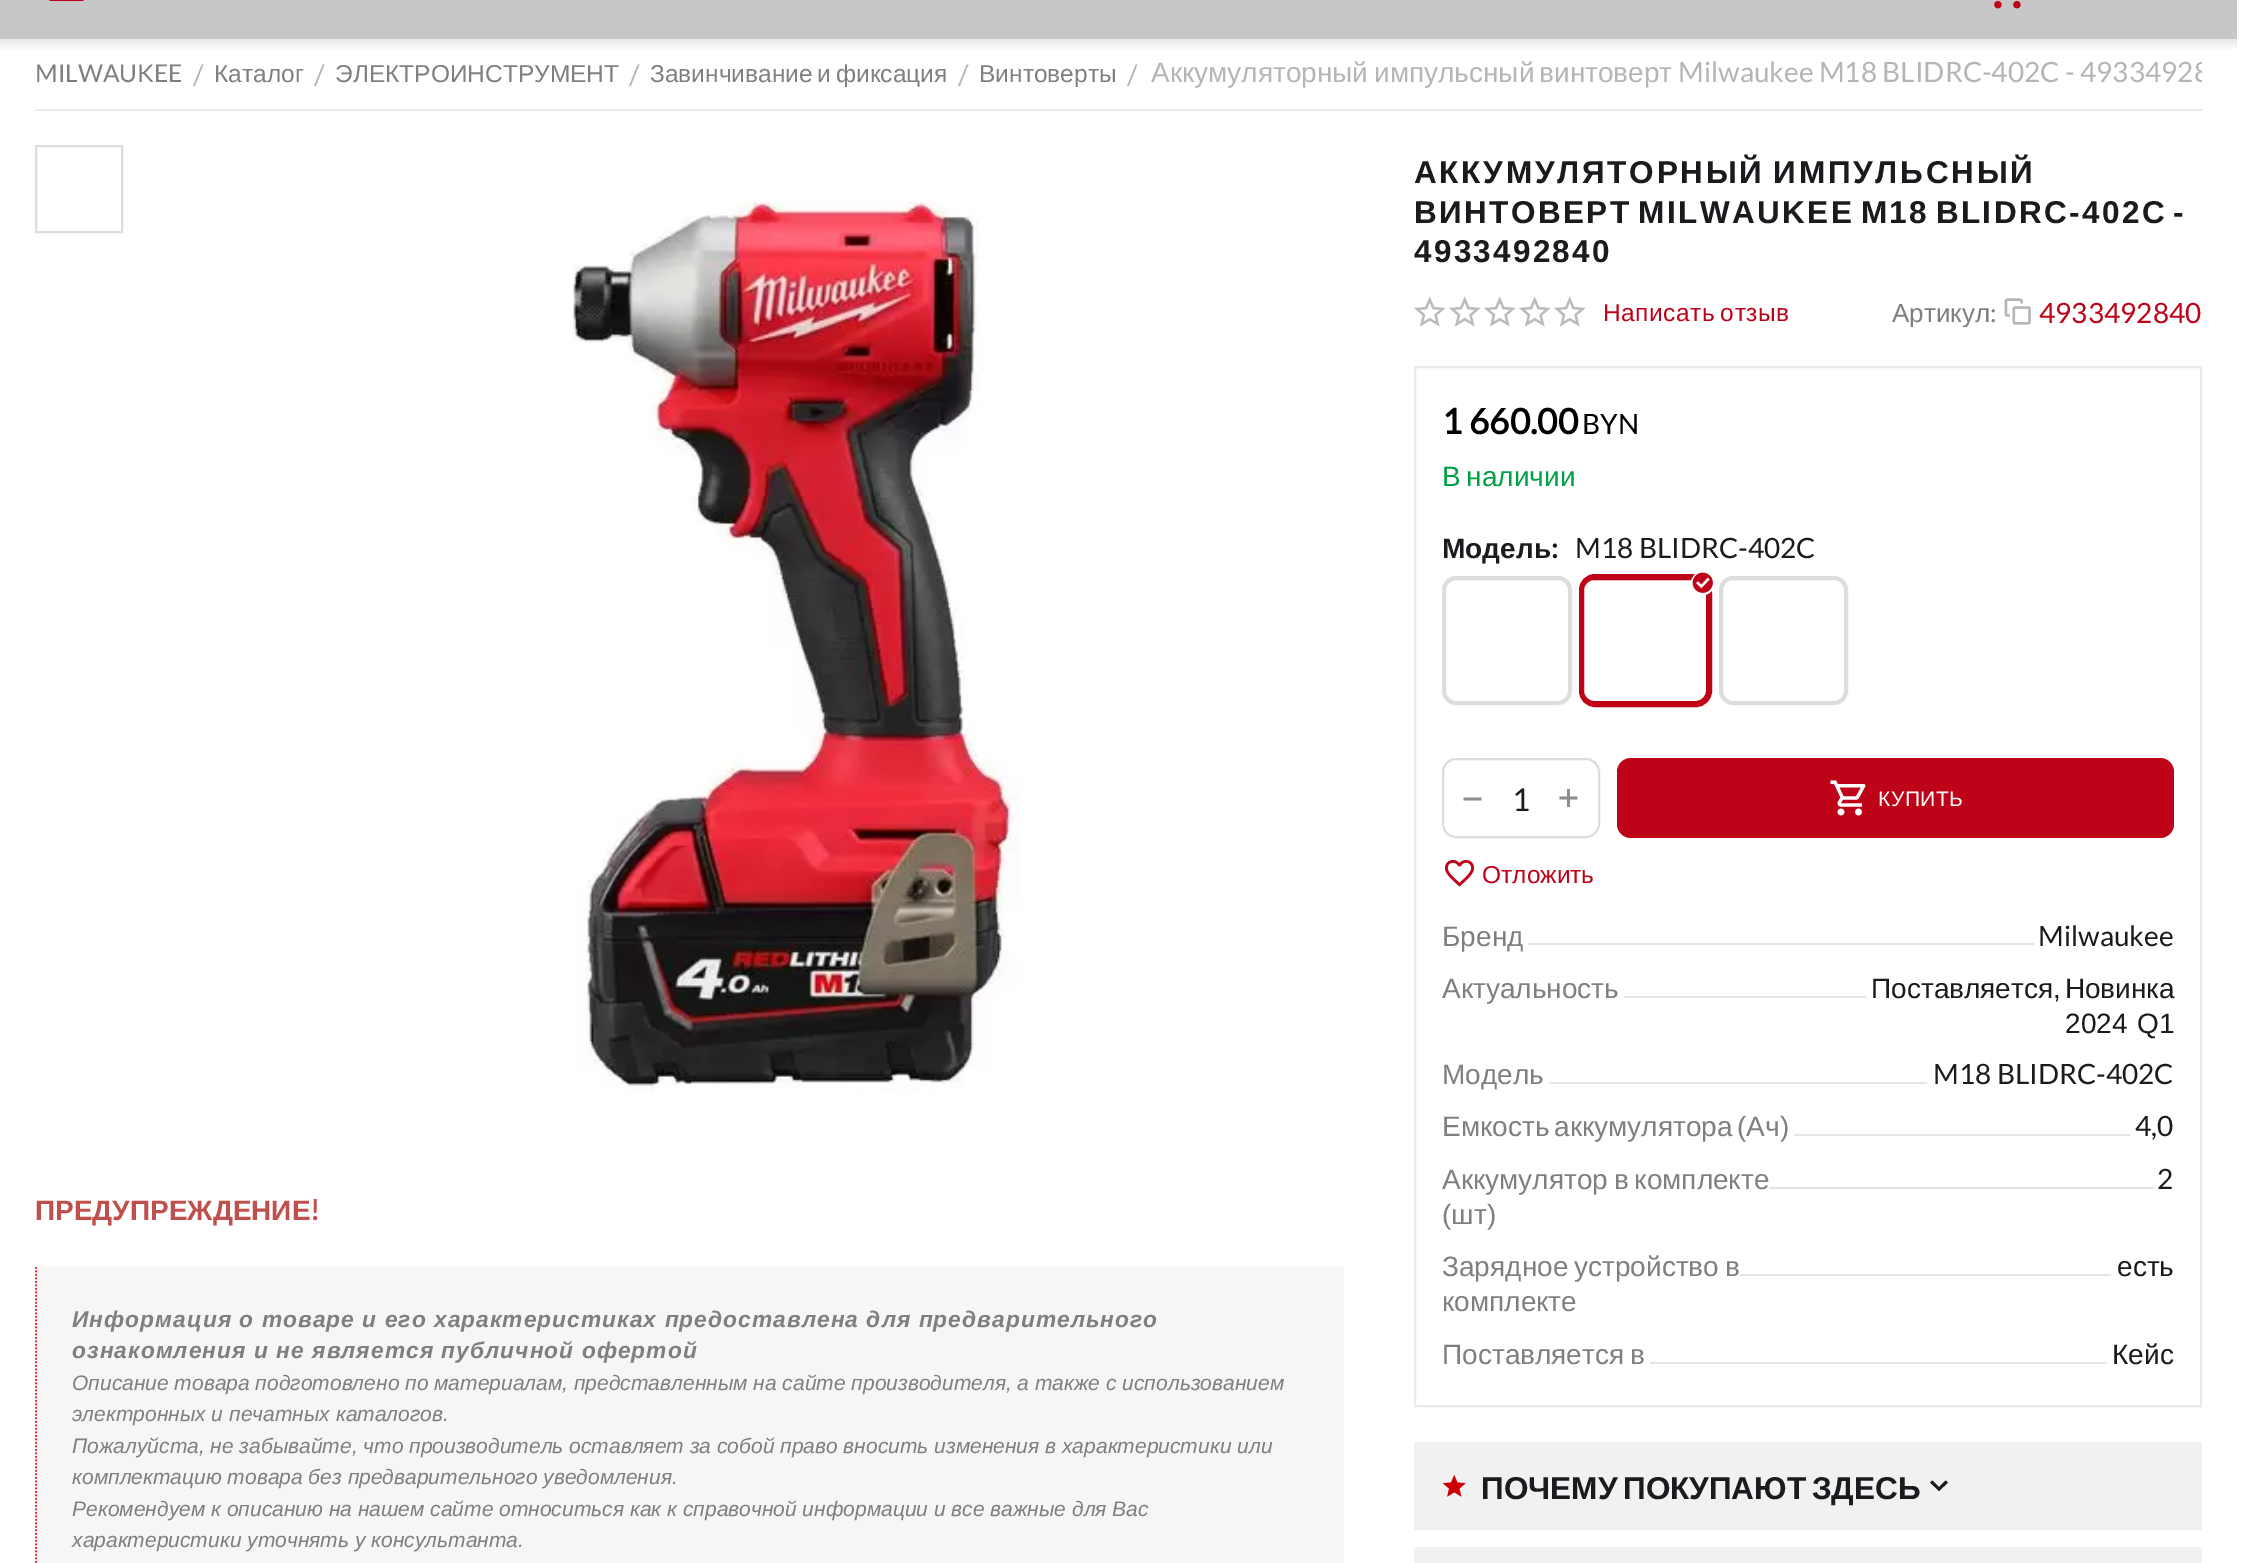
%!PS-Adobe-3.0
%%BoundingBox: 0 0 2249 1563
%%LanguageLevel: 3
%%Pages: 1
%%EndComments
%%BeginProlog
/setink { 3 { 255 div 3 1 roll } repeat setrgbcolor } def
/usefont { [ exch dup neg 0 0 3 -1 roll 0 0 ] selectfont } def
/drawtext { setink usefont moveto show } def
/fillbox { setink rectfill } def
/disc { newpath 0 360 arc closepath } def
/rrect { 5 dict begin { /r /h /w /y /x } { exch def } forall
  x r add y moveto x w add y 2 copy h add r arct x w add y h add x 1 index r arct
  x y h add x y r arct x y 2 copy exch w add exch r arct closepath end } def
/drawimage { 5 dict begin { /h /w /y /x /name } { exch def } forall
  gsave x y translate w h scale
  w h 8 [w 0 0 h 0 0] name (r) file false 3 colorimage grestore end } def
%%EndProlog
%%BeginSetup
<< /PageSize [2249 1563] >> setpagedevice
%%EndSetup
%%Page: 1 1
0 1563 translate 1 -1 scale
4 setmiterlimit
0 0 2249 1563 255 255 255 fillbox
0 0 2237 39 199 199 199 fillbox
190 3 24 setink
49.5 1 moveto 83.5 1 lineto 83.5 -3 lineto 49.5 -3 lineto closepath 49.5 -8.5 moveto 83.5 -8.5 lineto 83.5 -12.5 lineto 49.5 -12.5 lineto closepath 49.5 -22 moveto 49.5 -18 lineto 83.5 -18 lineto 83.5 -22 lineto closepath fill
(assets/img1.rgb) 1994 0 27 9 drawimage
gsave 0 39 moveto 2237 39 lineto 2237 50 lineto 0 50 lineto closepath clip newpath
<< /ShadingType 2 /ColorSpace /DeviceRGB /Coords [1118 38 1118 51] /Extend [true true] /Function << /FunctionType 2 /Domain [0 1] /C0 [0.902 0.902 0.902] /C1 [1 1 1] /N 1 >> >> shfill grestore
35 109 2167 2 234 234 234 fillbox
(MILWAUKEE) 35 82 /Lato-Regular 24.5 127 127 127 drawtext
(/) 193 85 /Lato-Regular 28 181 181 181 drawtext
(Каталог) 214 82 /LiberationSans-Regular 24.5 127 127 127 drawtext
(/) 314 85 /Lato-Regular 28 181 181 181 drawtext
(ЭЛЕКТРОИНСТРУМЕНТ) 335 82 /LiberationSans-Regular 24.5 127 127 127 drawtext
(/) 629 85 /Lato-Regular 28 181 181 181 drawtext
/LiberationSans-Regular 24.5 usefont
127 127 127 setink
650 82 moveto -2 0 32 (Завинчивание и фиксация) widthshow
(/) 958 85 /Lato-Regular 28 181 181 181 drawtext
(Винтоверты) 979 82 /LiberationSans-Regular 24.5 127 127 127 drawtext
(/) 1127 85 /Lato-Regular 28 181 181 181 drawtext
(Аккумуляторный) 1151 82 /LiberationSans-Regular 28 181 181 181 drawtext
(импульсный) 1374 82 /LiberationSans-Regular 28 181 181 181 drawtext
(винтоверт) 1539 82 /LiberationSans-Regular 28 181 181 181 drawtext
gsave
35 39 2167 70 rectclip
(Milwaukee M18 BLIDRC-402C - 49334928) 1678 82 /Lato-Regular 28 181 181 181 drawtext
grestore
(ПРЕДУПРЕЖДЕНИЕ) 35 1220 /LiberationSans-Bold 28 192 80 77 drawtext
(!) 310 1220 /Lato-Bold 28 192 80 77 drawtext
35 1267 1309 296 246 246 246 fillbox
255 25 51 setink
1.8 setlinewidth
[1.75 1.75] 0 setdash
36 1267 moveto 36 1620.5 lineto stroke
/LiberationSans-BoldItalic 22.75 usefont
127 127 127 setink
72 1327 moveto 1.05 0 (Информация о товаре и его характеристиках предоставлена для предварительного) ashow
72 1358 moveto 1.05 0 (ознакомления и не является публичной офертой) ashow
(Описание товара подготовлено по материалам, представленным на сайте производителя, а также с использованием) 72 1390 /LiberationSans-Italic 21 127 127 127 drawtext
(электронных и печатных каталогов.) 72 1421 /LiberationSans-Italic 21 127 127 127 drawtext
(Пожалуйста, не забывайте, что производитель оставляет за собой право вносить изменения в характеристики или) 72 1453 /LiberationSans-Italic 21 127 127 127 drawtext
(комплектацию товара без предварительного уведомления.) 72 1484 /LiberationSans-Italic 21 127 127 127 drawtext
(Рекомендуем к описанию на нашем сайте относиться как к справочной информации и все важные для Вас) 72 1516 /LiberationSans-Italic 21 127 127 127 drawtext
(характеристики уточнять у консультанта.) 72 1547 /LiberationSans-Italic 21 127 127 127 drawtext
221 221 221 setink
2 setlinewidth
[] 0 setdash
36 146 86 86 rectstroke
(assets/img2.rgb) 572 201 449 890 drawimage
/LiberationSans-Bold 31.5 usefont
25 27 30 setink
1414 183 moveto -3 0 32 2.75 0 (АККУМУЛЯТОРНЫЙ ИМПУЛЬСНЫЙ) awidthshow
1414 223 moveto -4.5 0 32 2.4 0 (ВИНТОВЕРТ MILWAUKEE M18 BLIDRC-402C -) awidthshow
1414 262 moveto 2.25 0 (4933492840) ashow
(assets/img3.rgb) 1414 296 172 31 drawimage
/LiberationSans-Regular 24.5 usefont
190 3 24 setink
1603 321 moveto -2 0 32 0.5 0 (Написать отзыв) awidthshow
gsave
1892 296 105 31 rectclip
(Артикул) 1892 322 /LiberationSans-Regular 26 127 127 127 drawtext
grestore
(:) 1990 322 /Lato-Regular 26 127 127 127 drawtext
(assets/img4.rgb) 2004 298 27 27 drawimage
(4933492840) 2039 323 /Lato-Regular 28 190 3 24 drawtext
234 234 234 setink
1415 367 786 1039 rectstroke
(1 660.00) 1442 434 /Lato-Bold 35 0 0 0 drawtext
(BYN) 1582 434 /Lato-Regular 28 0 0 0 drawtext
/LiberationSans-Regular 28 usefont
0 160 70 setink
1442 486 moveto -2 0 32 (В наличии) widthshow
(Модель) 1442 558 /LiberationSans-Bold 28 25 27 30 drawtext
(:) 1551 558 /Lato-Bold 28 25 27 30 drawtext
(M18 BLIDRC-402C) 1575 558 /Lato-Regular 28 25 27 30 drawtext
221 221 221 setink
4 setlinewidth
1444 578 126 125 12 rrect stroke
190 3 24 setink
2 setlinewidth
1580 575 131 131 15 rrect stroke
4 setlinewidth
1582 578 126 125 12 rrect stroke
255 255 255 setink
1703 583 12 disc fill
(assets/img5.rgb) 1692 572 21 21 drawimage
221 221 221 setink
1721 578 125 125 12 rrect stroke
2 setlinewidth
1443 759 156 78 13 rrect stroke
(−) 1462 810 /DejaVuSansMono-Regular 35 140 141 143 drawtext
(1) 1512 811 /Lato-Regular 31.5 25 27 30 drawtext
(+) 1558 809 /DejaVuSansMono-Regular 35 140 141 143 drawtext
190 3 24 setink
1617 758 557 80 14 rrect fill
(assets/img6.rgb) 1830 780 36 36 drawimage
/LiberationSans-Regular 21 usefont
255 255 255 setink
1878 806 moveto 0.5 0 (КУПИТЬ) ashow
(assets/img7.rgb) 1444 859 31 28 drawimage
(Отложить) 1482 883 /LiberationSans-Regular 24.5 190 3 24 drawtext
(Бренд) 1442 946 /LiberationSans-Regular 28 127 127 127 drawtext
1528 943 506 2 228 228 228 fillbox
(Milwaukee) 2038 946 /Lato-Regular 28 25 27 30 drawtext
(Актуальность) 1442 998 /LiberationSans-Regular 28 127 127 127 drawtext
1624 996 242 2 228 228 228 fillbox
25 27 30 setink
1871 998 moveto -4 0 32 (Поставляется, Новинка) widthshow
2065 1033 moveto 2 0 32 (2024 Q1) widthshow
(Модель) 1442 1084 /LiberationSans-Regular 28 127 127 127 drawtext
1549 1082 378 2 228 228 228 fillbox
(M18 BLIDRC-402C) 1933 1084 /Lato-Regular 28 25 27 30 drawtext
/LiberationSans-Regular 28 usefont
127 127 127 setink
1442 1136 moveto -3 0 32 (Емкость аккумулятора \(Ач\)) widthshow
1794 1134 336 2 228 228 228 fillbox
(4,0) 2135 1136 /Lato-Regular 28 25 27 30 drawtext
/LiberationSans-Regular 28 usefont
127 127 127 setink
1442 1189 moveto -2 0 32 (Аккумулятор в комплекте) widthshow
(\(шт\)) 1442 1224 /LiberationSans-Regular 28 127 127 127 drawtext
1769 1187 384 2 228 228 228 fillbox
(2) 2157 1189 /Lato-Regular 28 25 27 30 drawtext
/LiberationSans-Regular 28 usefont
127 127 127 setink
1442 1276 moveto -2 0 32 (Зарядное устройство в) widthshow
(комплекте) 1442 1311 /LiberationSans-Regular 28 127 127 127 drawtext
1740 1274 371 2 228 228 228 fillbox
(есть) 2117 1276 /LiberationSans-Regular 28 25 27 30 drawtext
127 127 127 setink
1442 1364 moveto -2 0 32 (Поставляется в) widthshow
1650 1362 457 2 228 228 228 fillbox
(Кейс) 2112 1364 /LiberationSans-Regular 28 25 27 30 drawtext
1414 1442 788 88 241 241 241 fillbox
(assets/img8.rgb) 1442 1474 24 23 drawimage
/LiberationSans-Bold 31.5 usefont
25 27 30 setink
1481 1499 moveto -3 0 32 (ПОЧЕМУ ПОКУПАЮТ ЗДЕСЬ) widthshow
1945.5 1480.5 moveto 1939 1487 lineto 1932.5 1480.5 lineto 1930 1482.5 lineto 1939 1491 lineto 1948 1482.5 lineto closepath fill
1414 1547 788 16 241 241 241 fillbox
showpage
%%EOF
